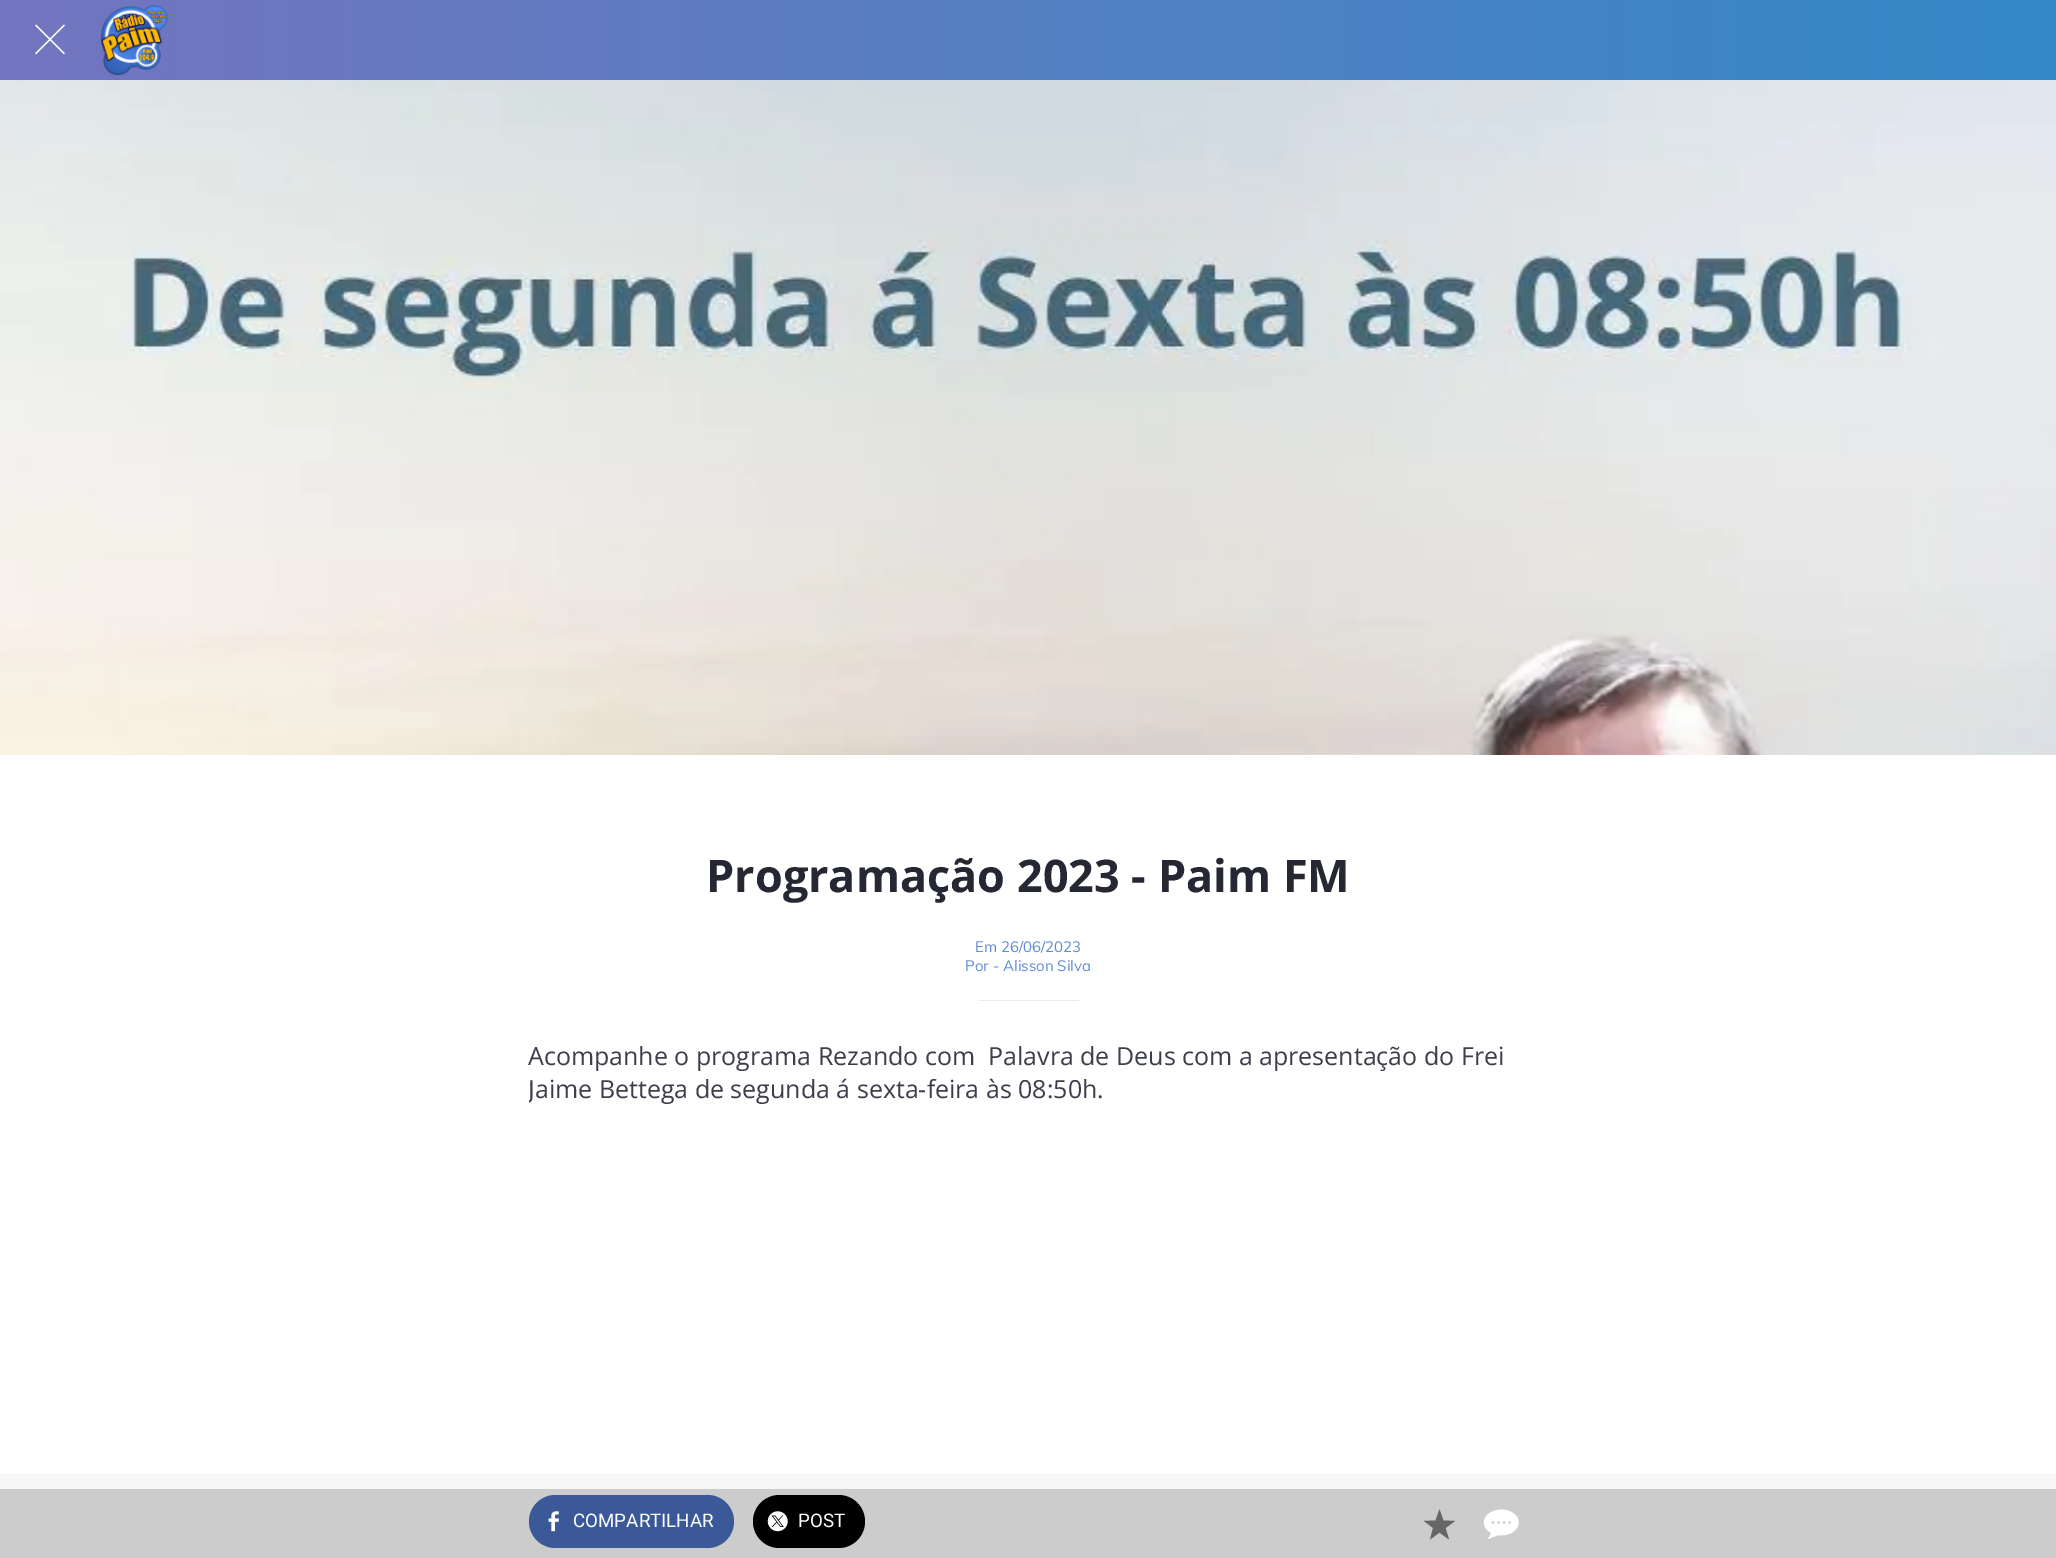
%!PS-Adobe-3.0
%%BoundingBox: 0 0 2056 1558
%%LanguageLevel: 3
%%Pages: 1
%%EndComments
%%BeginProlog
/setink { 3 { 255 div 3 1 roll } repeat setrgbcolor } def
/usefont { [ exch dup neg 0 0 3 -1 roll 0 0 ] selectfont } def
/drawtext { setink usefont moveto show } def
/fillbox { setink rectfill } def
/rrect { 5 dict begin { /r /h /w /y /x } { exch def } forall
  x r add y moveto x w add y 2 copy h add r arct x w add y h add x 1 index r arct
  x y h add x y r arct x y 2 copy exch w add exch r arct closepath end } def
/drawimage { 5 dict begin { /h /w /y /x /name } { exch def } forall
  gsave x y translate w h scale
  w h 8 [w 0 0 h 0 0] name (r) file false 3 colorimage grestore end } def
%%EndProlog
%%BeginSetup
<< /PageSize [2056 1558] >> setpagedevice
%%EndSetup
%%Page: 1 1
0 1558 translate 1 -1 scale
4 setmiterlimit
0 0 2056 1558 246 246 246 fillbox
gsave 0 0 moveto 2056 0 lineto 2056 80 lineto 0 80 lineto closepath clip newpath
<< /ShadingType 2 /ColorSpace /DeviceRGB /Coords [0 40 2056 40] /Extend [true true] /Function << /FunctionType 2 /Domain [0 1] /C0 [0.455 0.455 0.749] /C1 [0.204 0.541 0.78] /N 1 >> >> shfill grestore
(assets/img1.rgb) 35 24 30 31 drawimage
(assets/img2.rgb) 100 5 68 70 drawimage
(assets/img3.rgb) 0 80 2056 675 drawimage
0 755 2056 719 255 255 255 fillbox
(Programação 2023 - Paim FM) 706 892 /OpenSans-Bold 45 37 39 51 drawtext
(Em 26/06/2023) 975 952 /Muli-Regular 15 93 141 212 drawtext
(Por - Alisson Silva) 965 971 /Muli-Regular 15 93 141 212 drawtext
979 1000 100 1 234 234 234 fillbox
(Acompanhe o programa Rezando com  Palavra de Deus com a apresentação do Frei) 528 1065 /OpenSans-Regular 25 60 62 74 drawtext
gsave
529 1026 1000 105 rectclip
(Jaime Bettega de segunda á sexta-feira às 08:50h.) 528 1098 /OpenSans-Regular 25 60 62 74 drawtext
grestore
0 1489 2056 69 204 204 204 fillbox
59 89 153 setink
529 1495 205 53 26.5 rrect fill
(assets/img4.rgb) 548 1511 11 21 drawimage
(COMPARTILHAR) 573 1527 /Roboto-Regular 18.75 255 255 255 drawtext
0 0 0 setink
753 1495 112 53 26.5 rrect fill
(assets/img5.rgb) 767 1511 21 21 drawimage
(POST) 798 1527 /Roboto-Regular 18.75 255 255 255 drawtext
102 102 102 setink
1455 1521 moveto 1443.5 1520.5 lineto 1439.5 1509.5 lineto 1435.5 1520.5 lineto 1424 1521 lineto 1433 1528 lineto 1430 1539.5 lineto 1439.5 1532.5 lineto 1449 1539.5 lineto 1445.5 1528 lineto closepath fill
(assets/img6.rgb) 1483 1509 36 30 drawimage
showpage
%%EOF
